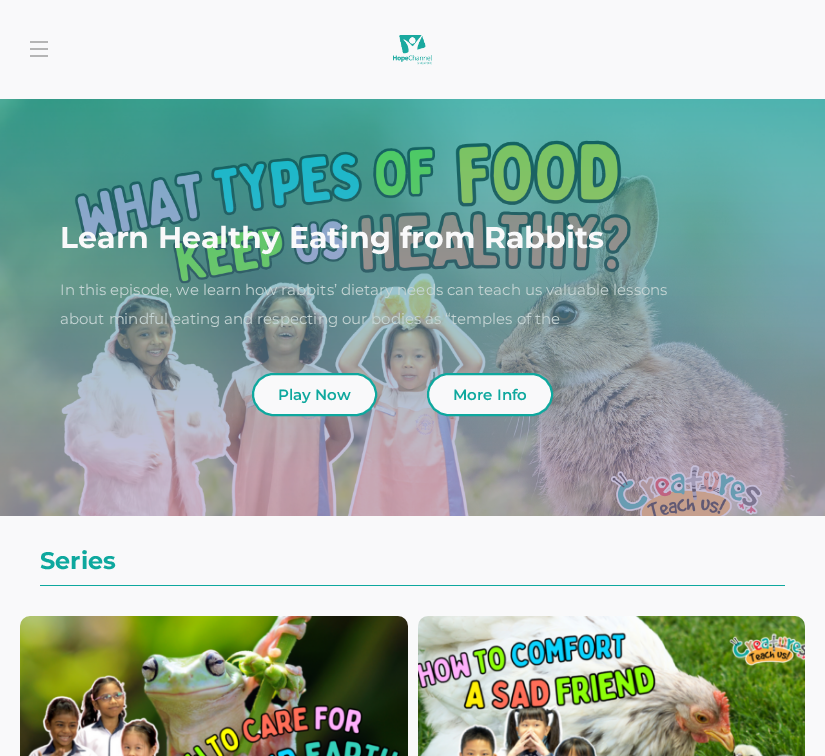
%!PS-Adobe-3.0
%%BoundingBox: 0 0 825 756
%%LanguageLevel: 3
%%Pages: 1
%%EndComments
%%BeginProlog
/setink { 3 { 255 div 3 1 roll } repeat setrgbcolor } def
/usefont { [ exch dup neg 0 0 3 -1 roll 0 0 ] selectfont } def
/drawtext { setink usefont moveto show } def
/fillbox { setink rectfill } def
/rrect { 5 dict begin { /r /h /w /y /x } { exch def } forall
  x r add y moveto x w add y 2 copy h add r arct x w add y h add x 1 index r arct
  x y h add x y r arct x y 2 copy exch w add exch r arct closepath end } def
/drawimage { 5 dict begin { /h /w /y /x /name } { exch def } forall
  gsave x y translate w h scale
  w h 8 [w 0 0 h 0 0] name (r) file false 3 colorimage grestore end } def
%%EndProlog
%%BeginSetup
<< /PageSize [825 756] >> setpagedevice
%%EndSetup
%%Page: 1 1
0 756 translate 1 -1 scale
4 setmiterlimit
0 0 825 756 249 249 250 fillbox
30 41 18 2 181 181 181 fillbox
30 48 18 2 181 181 181 fillbox
30 55 18 2 181 181 181 fillbox
(assets/img1.rgb) 393 35 39 30 drawimage
(assets/img2.rgb) 0 99 825 417 drawimage
(Learn Healthy Eating from Rabbits) 60 248 /Montserrat-Bold 30 249 249 250 drawtext
(In this episode, we learn how rabbits’ dietary needs can teach us valuable lessons) 60 295 /Montserrat-Regular 15 199 214 214 drawtext
(about mindful eating and respecting our bodies as “temples of the) 60 324 /Montserrat-Regular 15 199 214 214 drawtext
249 249 250 setink
253 374 123 41 20.5 rrect gsave fill grestore
14 168 158 setink
2 setlinewidth
stroke
(Play Now) 278 400 /Montserrat-SemiBold 15 14 168 158 drawtext
249 249 250 setink
428 374 124 41 20.5 rrect gsave fill grestore
14 168 158 setink
stroke
(More Info) 453 400 /Montserrat-SemiBold 15 14 168 158 drawtext
(Series) 40 569 /Montserrat-Bold 24 14 168 158 drawtext
40 585 745 1 14 168 158 fillbox
(assets/img3.rgb) 20 616 388 140 drawimage
(assets/img4.rgb) 418 616 387 140 drawimage
showpage
%%EOF
